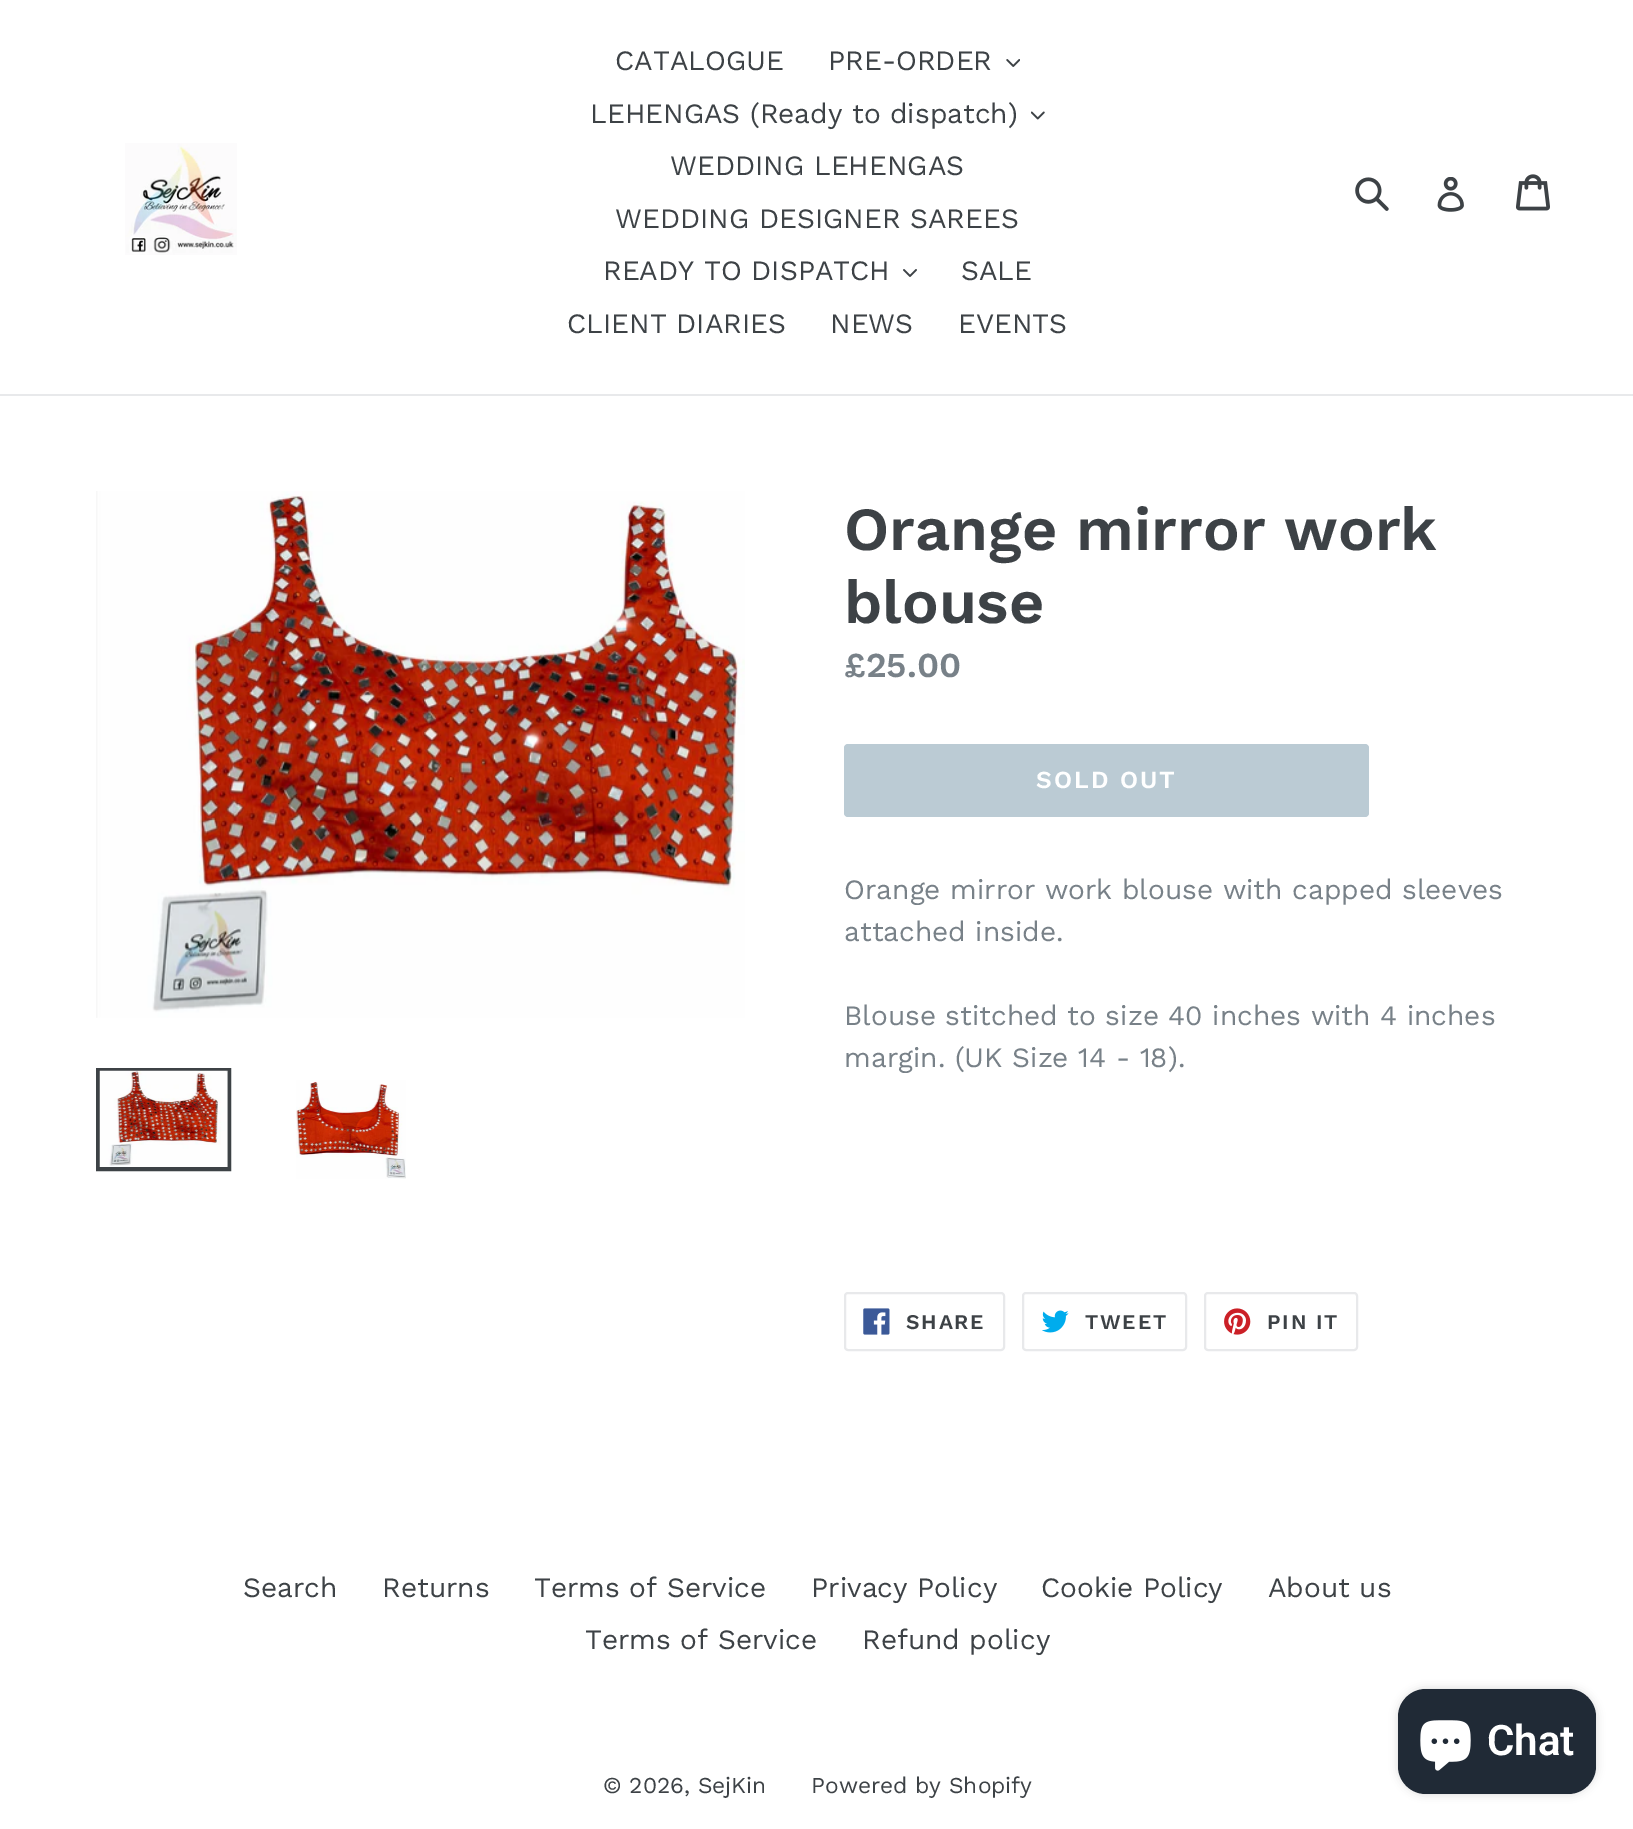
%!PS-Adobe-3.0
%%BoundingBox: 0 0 1633 1829
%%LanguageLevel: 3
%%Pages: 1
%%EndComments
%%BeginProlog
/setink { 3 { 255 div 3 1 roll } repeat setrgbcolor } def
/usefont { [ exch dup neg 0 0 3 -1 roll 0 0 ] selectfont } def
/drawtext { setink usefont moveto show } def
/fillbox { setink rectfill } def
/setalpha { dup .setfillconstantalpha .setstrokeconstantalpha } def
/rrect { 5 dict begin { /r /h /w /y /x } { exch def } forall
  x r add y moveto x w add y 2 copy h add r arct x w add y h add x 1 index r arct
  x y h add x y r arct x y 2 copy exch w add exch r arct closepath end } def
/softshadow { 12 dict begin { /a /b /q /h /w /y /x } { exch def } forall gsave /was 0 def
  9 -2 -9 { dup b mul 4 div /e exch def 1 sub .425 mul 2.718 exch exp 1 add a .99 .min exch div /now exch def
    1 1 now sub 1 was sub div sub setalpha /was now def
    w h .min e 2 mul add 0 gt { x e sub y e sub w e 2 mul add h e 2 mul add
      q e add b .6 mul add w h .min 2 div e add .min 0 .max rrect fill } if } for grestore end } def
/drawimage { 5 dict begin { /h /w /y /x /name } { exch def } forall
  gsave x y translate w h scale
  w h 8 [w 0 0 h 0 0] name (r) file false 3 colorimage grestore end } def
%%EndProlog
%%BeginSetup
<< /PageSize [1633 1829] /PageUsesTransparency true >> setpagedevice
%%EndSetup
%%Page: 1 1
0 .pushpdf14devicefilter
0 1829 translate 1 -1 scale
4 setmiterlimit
0 0 1633 1829 255 255 255 fillbox
0 394 1633 2 232 233 235 fillbox
(assets/img1.rgb) 125 143 112 112 drawimage
(CATALOGUE) 615 70 /WorkSans-Regular 28 61 66 70 drawtext
(PRE-ORDER) 828 70 /WorkSans-Regular 28 61 66 70 drawtext
(assets/img2.rgb) 1006 59 14 8 drawimage
(LEHENGAS \(Ready to dispatch\)) 590 123 /WorkSans-Regular 28 61 66 70 drawtext
(assets/img3.rgb) 1031 111 14 9 drawimage
(WEDDING LEHENGAS) 670 175 /WorkSans-Regular 28 61 66 70 drawtext
(WEDDING DESIGNER SAREES) 615 228 /WorkSans-Regular 28 61 66 70 drawtext
(READY TO DISPATCH) 603 280 /WorkSans-Regular 28 61 66 70 drawtext
(assets/img4.rgb) 903 269 14 8 drawimage
(SALE) 961 280 /WorkSans-Regular 28 61 66 70 drawtext
(CLIENT DIARIES) 567 333 /WorkSans-Regular 28 61 66 70 drawtext
(NEWS) 830 333 /WorkSans-Regular 28 61 66 70 drawtext
(EVENTS) 958 333 /WorkSans-Regular 28 61 66 70 drawtext
(assets/img5.rgb) 1355 177 34 34 drawimage
(assets/img6.rgb) 1437 177 27 35 drawimage
(assets/img7.rgb) 1516 174 34 37 drawimage
(assets/img8.rgb) 96 491 649 527 drawimage
4 setlinewidth
98 1070 131 99 rectstroke
(assets/img9.rgb) 99 1070 129 97 drawimage
(assets/img10.rgb) 296 1080 110 99 drawimage
(Orange mirror work) 844 550 /WorkSans-SemiBold 61.25 61 66 70 drawtext
(blouse) 844 623 /WorkSans-SemiBold 61.25 61 66 70 drawtext
(£25.00) 844 677 /WorkSans-SemiBold 35 120 129 136 drawtext
187 203 212 setink
844 744 525 73 4 rrect fill
/WorkSans-SemiBold 24.5 usefont
255 255 255 setink
1036 788 moveto 2 0 (SOLD OUT) ashow
(Orange mirror work blouse with capped sleeves) 844 899 /WorkSans-Regular 28 120 129 136 drawtext
(attached inside.) 844 941 /WorkSans-Regular 28 120 129 136 drawtext
(Blouse stitched to size 40 inches with 4 inches) 844 1025 /WorkSans-Regular 28 120 129 136 drawtext
(margin. \(UK Size 14 - 18\).) 844 1067 /WorkSans-Regular 28 120 129 136 drawtext
232 233 235 setink
2 setlinewidth
845 1293 159 57 3 rrect stroke
(assets/img11.rgb) 863 1308 27 27 drawimage
/WorkSans-SemiBold 21 usefont
61 66 70 setink
906 1329 moveto 1.75 0 (SHARE) ashow
232 233 235 setink
1023 1293 163 57 3 rrect stroke
(assets/img12.rgb) 1042 1310 27 23 drawimage
61 66 70 setink
1085 1329 moveto 1.75 0 (TWEET) ashow
232 233 235 setink
1205 1293 152 57 3 rrect stroke
(assets/img13.rgb) 1224 1308 27 27 drawimage
61 66 70 setink
1267 1329 moveto 1.75 0 (PIN IT) ashow
(Search) 243 1597 /WorkSans-Regular 28 61 66 70 drawtext
(Returns) 382 1597 /WorkSans-Regular 28 61 66 70 drawtext
(Terms of Service) 534 1597 /WorkSans-Regular 28 61 66 70 drawtext
(Privacy Policy) 811 1597 /WorkSans-Regular 28 61 66 70 drawtext
(Cookie Policy) 1041 1597 /WorkSans-Regular 28 61 66 70 drawtext
(About us) 1268 1597 /WorkSans-Regular 28 61 66 70 drawtext
(Terms of Service) 585 1649 /WorkSans-Regular 28 61 66 70 drawtext
(Refund policy) 862 1649 /WorkSans-Regular 28 61 66 70 drawtext
(© 2026, SejKin) 603 1793 /WorkSans-Regular 22.75 61 66 70 drawtext
(Powered by Shopify) 811 1793 /WorkSans-Regular 22.75 61 66 70 drawtext
0 0 0 setink
1398 1689 198 105 28 4.5 0.15 softshadow
32 42 54 setink
1398 1689 198 105 28 rrect fill
(assets/img14.rgb) 1420 1720 51 51 drawimage
(Chat) 1487 1755 /Roboto-SemiBold 42 255 255 255 drawtext
.poppdf14devicefilter showpage
%%EOF
